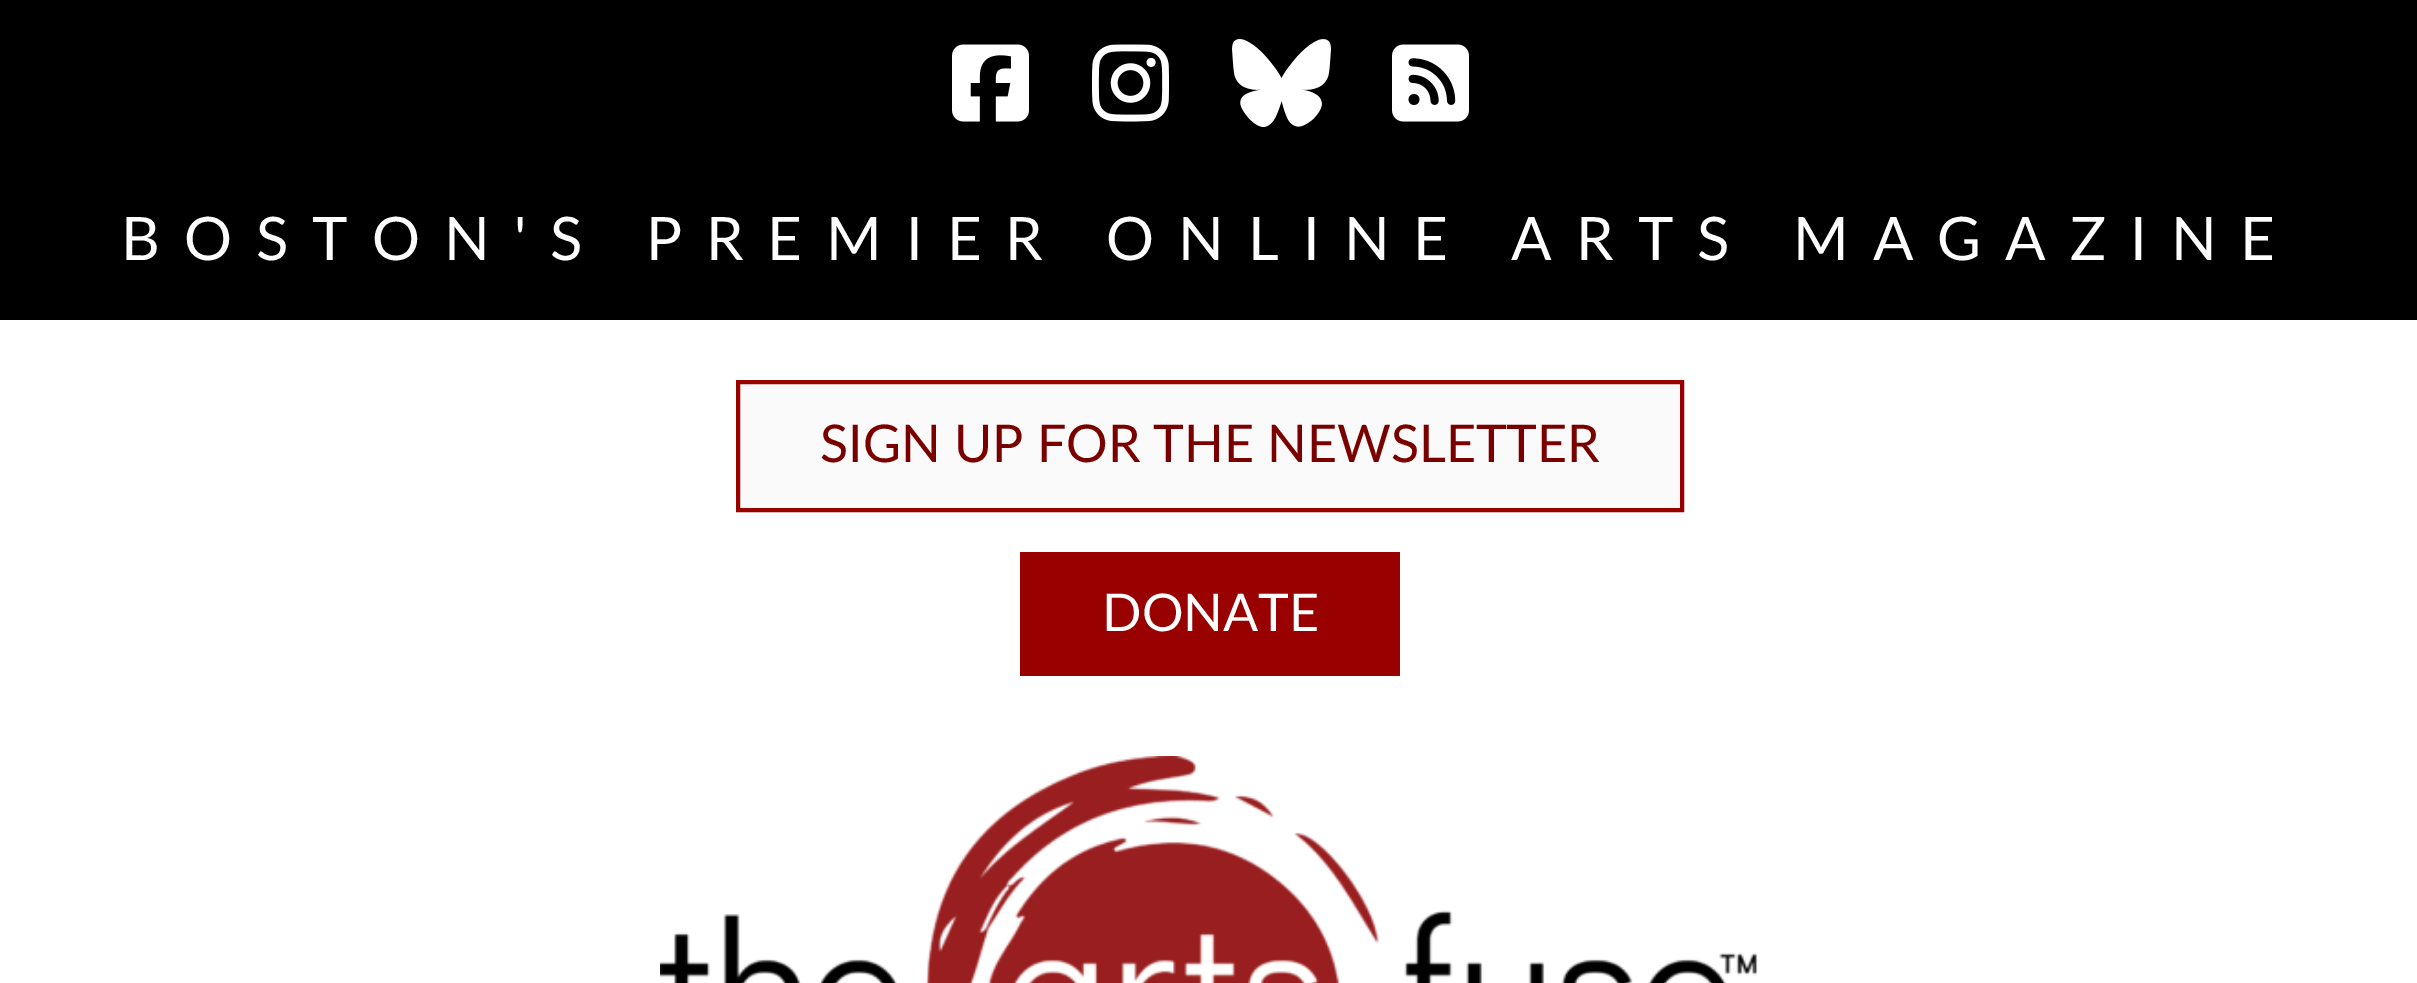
%!PS-Adobe-3.0
%%BoundingBox: 0 0 2417 983
%%LanguageLevel: 3
%%Pages: 1
%%EndComments
%%BeginProlog
/setink { 3 { 255 div 3 1 roll } repeat setrgbcolor } def
/usefont { [ exch dup neg 0 0 3 -1 roll 0 0 ] selectfont } def
/drawtext { setink usefont moveto show } def
/fillbox { setink rectfill } def
/drawimage { 5 dict begin { /h /w /y /x /name } { exch def } forall
  gsave x y translate w h scale
  w h 8 [w 0 0 h 0 0] name (r) file false 3 colorimage grestore end } def
%%EndProlog
%%BeginSetup
<< /PageSize [2417 983] >> setpagedevice
%%EndSetup
%%Page: 1 1
0 983 translate 1 -1 scale
4 setmiterlimit
0 0 2417 983 0 0 0 fillbox
(assets/img1.rgb) 952 44 77 78 drawimage
(assets/img2.rgb) 1092 44 77 78 drawimage
(assets/img3.rgb) 1232 39 99 88 drawimage
(assets/img4.rgb) 1392 44 77 78 drawimage
/Lato-Regular 60 usefont
255 255 255 setink
121 260 moveto 24 0 (BOSTON'S PREMIER ONLINE ARTS MAGAZINE) ashow
0 320 2417 663 255 255 255 fillbox
250 250 250 setink
738 382 moveto 1682 382 lineto 1682 510 lineto 738 510 lineto closepath gsave fill grestore
153 0 0 setink
4 setlinewidth
stroke
(SIGN UP FOR THE NEWSLETTER) 820 462 /Lato-Regular 52 122 0 0 drawtext
1020 552 380 124 153 0 0 fillbox
(DONATE) 1102 631 /Lato-Regular 52 255 255 255 drawtext
(assets/img5.rgb) 660 756 1098 227 drawimage
showpage
%%EOF
